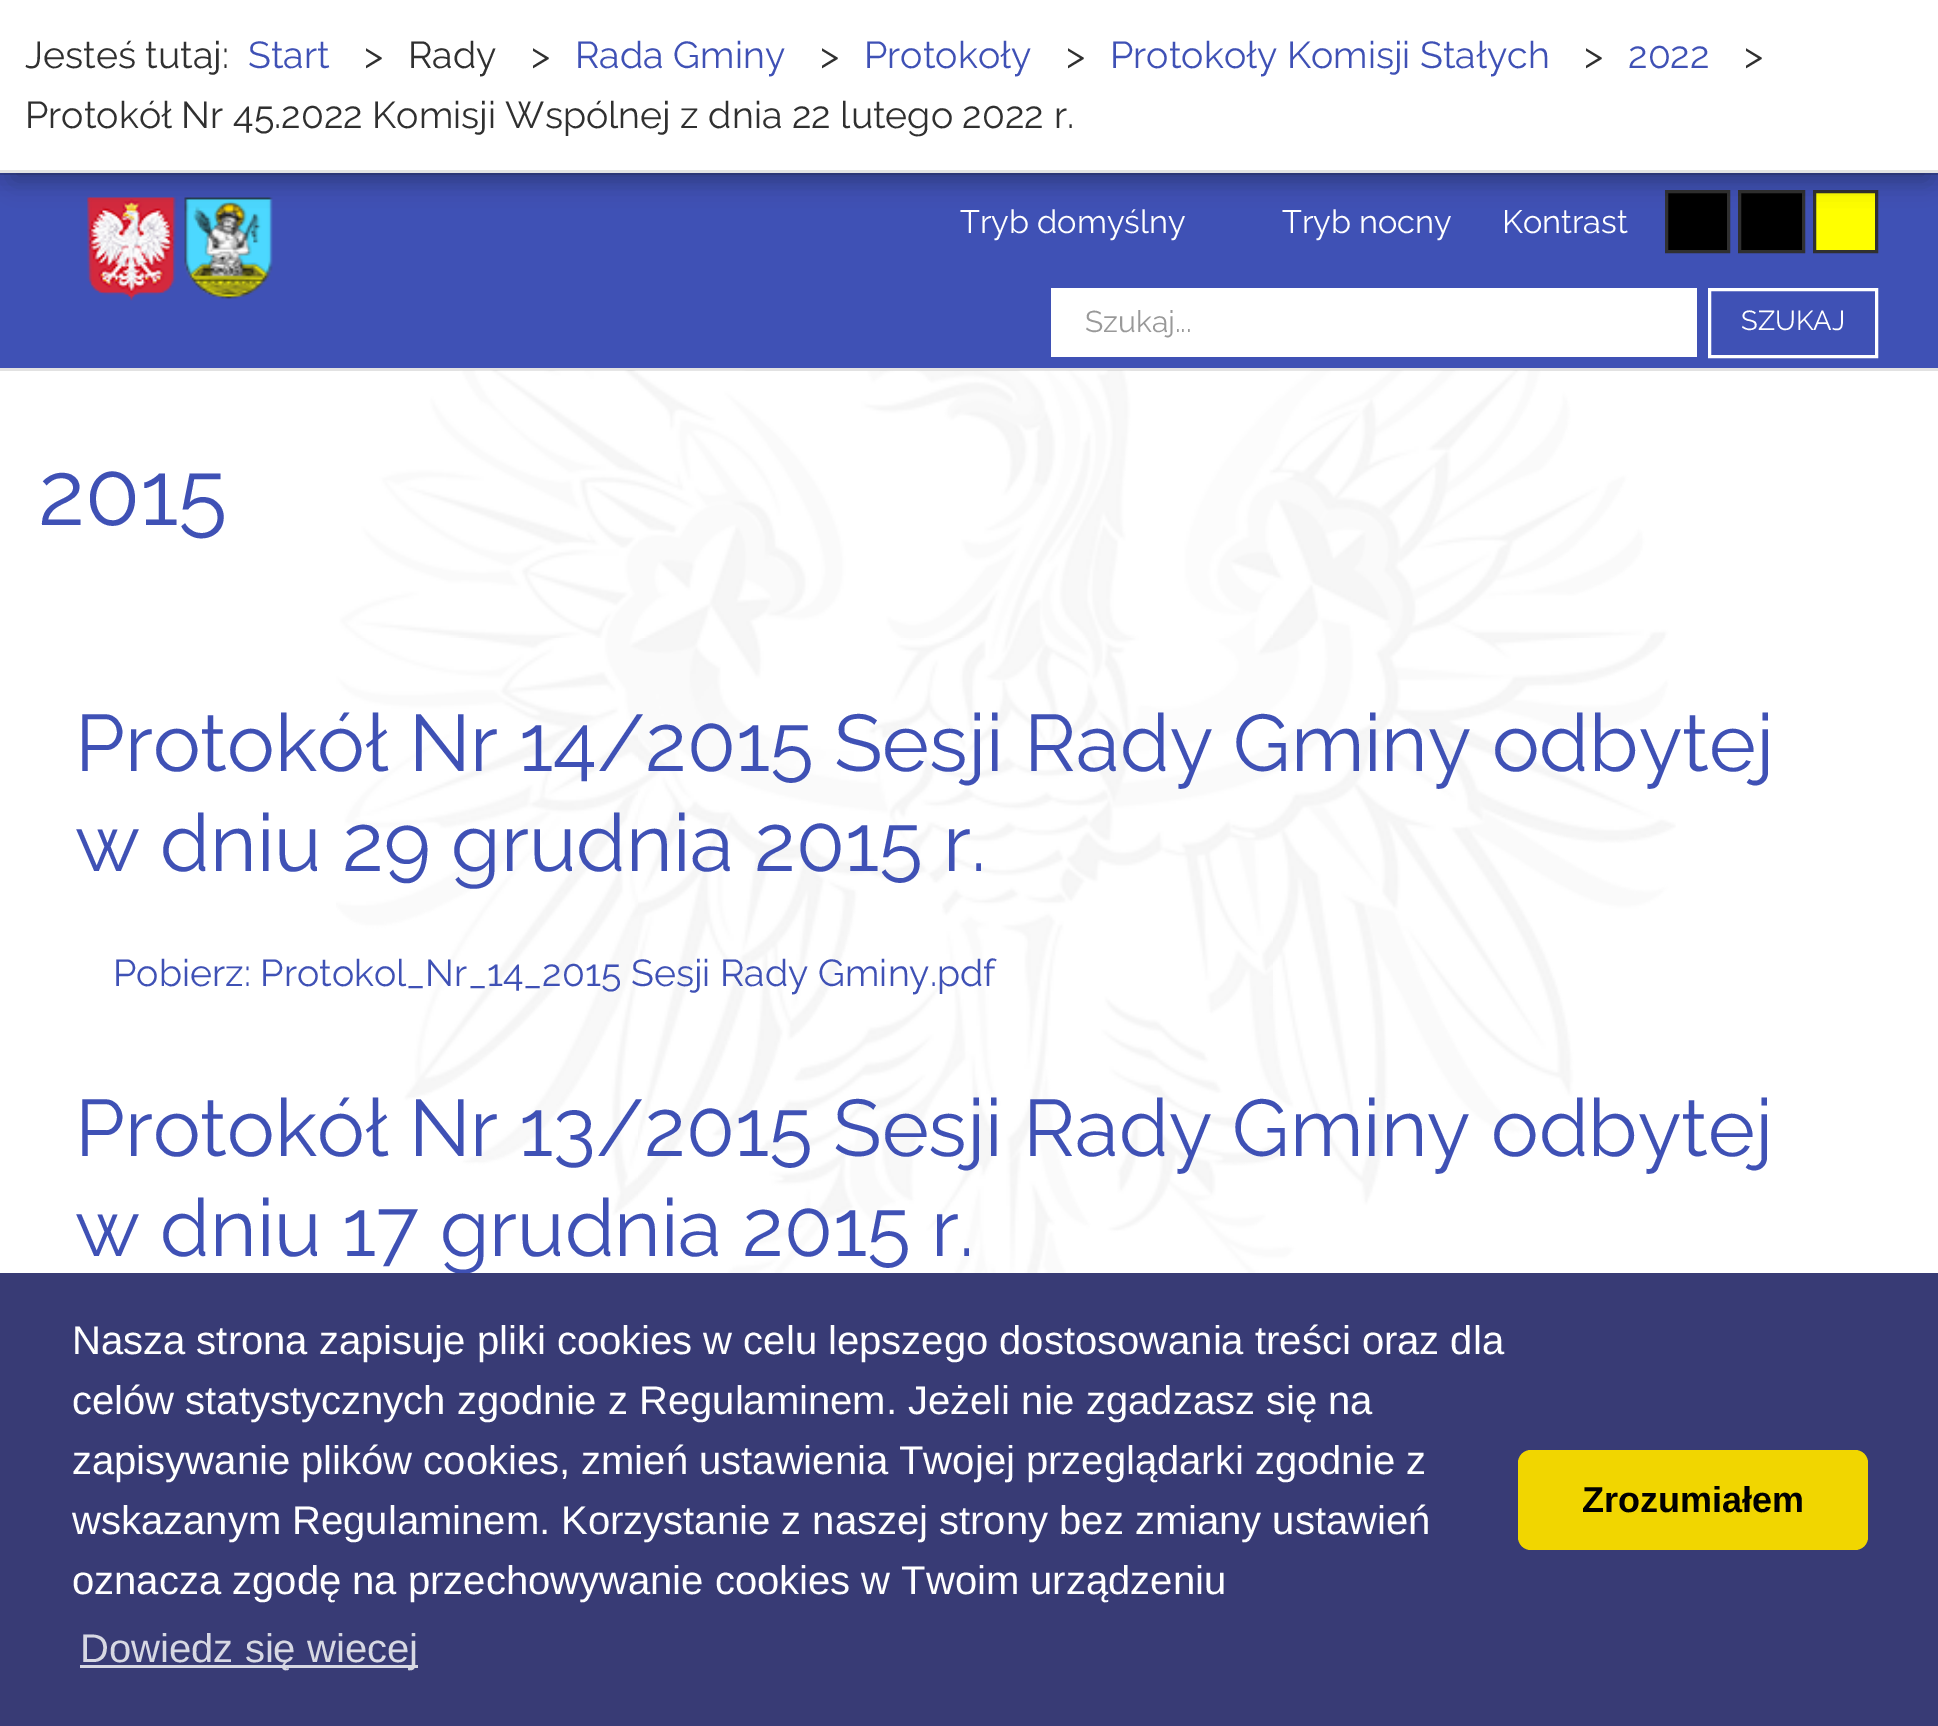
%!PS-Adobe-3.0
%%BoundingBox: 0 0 1938 1726
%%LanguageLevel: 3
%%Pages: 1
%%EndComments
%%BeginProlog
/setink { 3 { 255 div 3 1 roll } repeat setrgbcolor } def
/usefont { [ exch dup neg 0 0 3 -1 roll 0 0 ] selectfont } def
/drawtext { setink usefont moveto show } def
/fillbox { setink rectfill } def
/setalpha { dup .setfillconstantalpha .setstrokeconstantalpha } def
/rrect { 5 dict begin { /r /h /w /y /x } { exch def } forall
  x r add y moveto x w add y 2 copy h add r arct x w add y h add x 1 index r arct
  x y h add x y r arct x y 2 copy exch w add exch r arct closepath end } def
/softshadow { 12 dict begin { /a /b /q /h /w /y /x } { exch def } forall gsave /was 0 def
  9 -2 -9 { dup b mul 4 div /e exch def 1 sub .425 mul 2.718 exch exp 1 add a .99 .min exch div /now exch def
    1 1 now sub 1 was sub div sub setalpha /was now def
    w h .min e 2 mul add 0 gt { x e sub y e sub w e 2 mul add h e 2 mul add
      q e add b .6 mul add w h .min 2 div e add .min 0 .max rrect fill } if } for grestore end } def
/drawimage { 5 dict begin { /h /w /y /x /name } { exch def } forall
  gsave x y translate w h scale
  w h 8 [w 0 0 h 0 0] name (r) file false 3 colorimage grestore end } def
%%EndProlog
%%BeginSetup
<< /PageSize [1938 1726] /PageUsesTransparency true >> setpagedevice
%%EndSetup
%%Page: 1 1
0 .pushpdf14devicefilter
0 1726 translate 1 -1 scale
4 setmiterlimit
0 0 1938 1726 255 255 255 fillbox
0 368 1938 3 226 226 226 fillbox
(assets/img1.rgb) 336 370 1340 903 drawimage
0 173 1938 195 63 81 181 fillbox
(assets/img2.rgb) 87 197 186 104 drawimage
0 0 0 setink
1666.5 191.5 moveto 1728.5 191.5 lineto 1728.5 251.5 lineto 1666.5 251.5 lineto closepath gsave fill grestore
48 48 48 setink
3 setlinewidth
stroke
0 0 0 setink
1739.5 191.5 moveto 1803.5 191.5 lineto 1803.5 251.5 lineto 1739.5 251.5 lineto closepath gsave fill grestore
48 48 48 setink
stroke
255 255 0 setink
1814.5 191.5 moveto 1876.5 191.5 lineto 1876.5 251.5 lineto 1814.5 251.5 lineto closepath gsave fill grestore
48 48 48 setink
stroke
0 0 0 setink
13 33 1915 147 0 12.5 0.2 softshadow
-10 -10 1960 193 0 11 0.12 softshadow
0.14 setalpha
-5 -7 moveto -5 175 lineto 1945 175 lineto 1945 -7 lineto closepath 0 0 moveto 0 172 lineto 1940 172 lineto 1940 0 lineto closepath eofill
1 setalpha
0 0 1938 170 255 255 255 fillbox
0 170 1938 3 226 226 226 fillbox
(Jesteś tutaj:) 25 68 /Raleway-Thin 37.5 48 48 48 drawtext
(Start) 248 68 /Raleway-Thin 37.5 63 81 181 drawtext
(>) 364 68 /Raleway-Thin 37.5 48 48 48 drawtext
(Rady) 408 68 /Raleway-Thin 37.5 48 48 48 drawtext
(>) 531 68 /Raleway-Thin 37.5 48 48 48 drawtext
(Rada Gminy) 575 68 /Raleway-Thin 37.5 63 81 181 drawtext
(>) 820 68 /Raleway-Thin 37.5 48 48 48 drawtext
(Protokoły) 864 68 /Raleway-Thin 37.5 63 81 181 drawtext
(>) 1066 68 /Raleway-Thin 37.5 48 48 48 drawtext
(Protokoły Komisji Stałych) 1110 68 /Raleway-Thin 37.5 63 81 181 drawtext
(>) 1584 68 /Raleway-Thin 37.5 48 48 48 drawtext
(2022) 1628 68 /Raleway-Thin 37.5 63 81 181 drawtext
(>) 1744 68 /Raleway-Thin 37.5 48 48 48 drawtext
(Protokół Nr 45.2022 Komisji Wspólnej z dnia 22 lutego 2022 r.) 25 128 /Raleway-Thin 37.5 48 48 48 drawtext
(2015) 38 525 /Raleway-Thin 90 63 81 181 drawtext
(Protokół Nr 14/2015 Sesji Rady Gminy odbytej) 75 771 /Raleway-Thin 80 63 81 181 drawtext
(w dniu 29 grudnia 2015 r.) 75 871 /Raleway-Thin 80 63 81 181 drawtext
(Pobierz: Protokol_Nr_14_2015 Sesji Rady Gminy.pdf) 113 986 /Raleway-Thin 37.5 63 81 181 drawtext
(Protokół Nr 13/2015 Sesji Rady Gminy odbytej) 75 1156 /Raleway-Thin 80 63 81 181 drawtext
(w dniu 17 grudnia 2015 r.) 75 1256 /Raleway-Thin 80 63 81 181 drawtext
(Tryb domyślny) 960 233 /Raleway-Thin 32.5 255 255 255 drawtext
(Tryb nocny) 1282 233 /Raleway-Thin 32.5 255 255 255 drawtext
(Kontrast) 1502 233 /Raleway-Thin 32.5 255 255 255 drawtext
1051 288 646 69 255 255 255 fillbox
(Szukaj...) 1085 332 /Raleway-Thin 30 153 153 153 drawtext
255 255 255 setink
1709.5 289.5 167 67 rectstroke
(SZUKAJ) 1741 330 /Raleway-Thin 27.5 255 255 255 drawtext
0 1273 1938 453 56 59 117 fillbox
(Nasza strona zapisuje pliki cookies w celu lepszego dostosowania treści oraz dla) 72 1354 /LiberationSans-Regular 40 255 255 255 drawtext
(celów statystycznych zgodnie z Regulaminem. Jeżeli nie zgadzasz się na) 72 1414 /LiberationSans-Regular 40 255 255 255 drawtext
(zapisywanie plików cookies, zmień ustawienia Twojej przeglądarki zgodnie z) 72 1474 /LiberationSans-Regular 40 255 255 255 drawtext
(wskazanym Regulaminem. Korzystanie z naszej strony bez zmiany ustawień) 72 1534 /LiberationSans-Regular 40 255 255 255 drawtext
(oznacza zgodę na przechowywanie cookies w Twoim urządzeniu) 72 1594 /LiberationSans-Regular 40 255 255 255 drawtext
80 1665 338 3 215 216 227 fillbox
(Dowiedz się wiecej) 80 1662 /LiberationSans-Regular 40 215 216 227 drawtext
241 214 0 setink
1518 1450 350 100 13 rrect fill
(Zrozumiałem) 1582 1512 /LiberationSans-Bold 36 0 0 0 drawtext
.poppdf14devicefilter showpage
%%EOF
